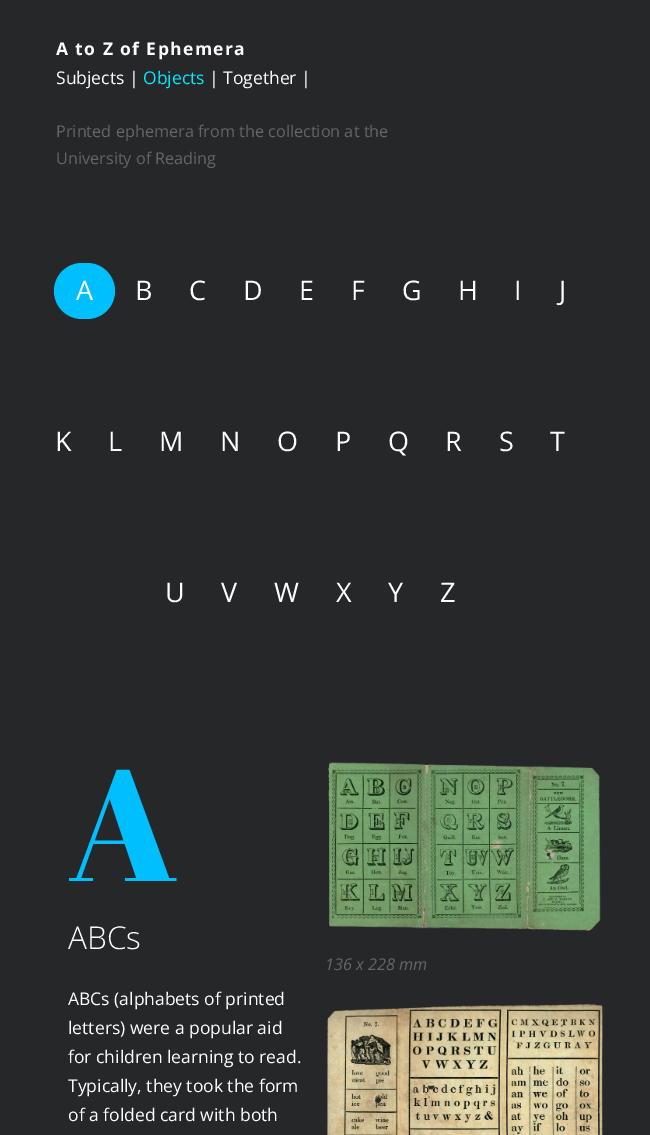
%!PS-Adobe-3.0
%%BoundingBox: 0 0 650 1135
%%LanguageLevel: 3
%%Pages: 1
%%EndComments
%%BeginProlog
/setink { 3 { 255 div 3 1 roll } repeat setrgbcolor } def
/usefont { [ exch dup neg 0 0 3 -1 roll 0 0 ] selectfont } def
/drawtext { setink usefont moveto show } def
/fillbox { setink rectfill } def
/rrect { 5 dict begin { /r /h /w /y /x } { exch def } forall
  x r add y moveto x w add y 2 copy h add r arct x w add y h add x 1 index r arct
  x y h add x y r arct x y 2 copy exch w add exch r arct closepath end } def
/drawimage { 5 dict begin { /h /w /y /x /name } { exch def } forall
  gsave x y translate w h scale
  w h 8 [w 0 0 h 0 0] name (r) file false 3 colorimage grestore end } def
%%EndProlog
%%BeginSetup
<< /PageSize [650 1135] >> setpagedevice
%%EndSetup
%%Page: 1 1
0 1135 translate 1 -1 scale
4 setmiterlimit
0 0 650 1135 37 39 41 fillbox
/OpenSans-Bold 17.5 usefont
255 255 255 setink
56 55 moveto 1.4 0 (A to Z of Ephemera) ashow
(Subjects |) 56 84 /OpenSans-Regular 17.5 255 255 255 drawtext
(Objects) 143 84 /OpenSans-Regular 17.5 5 233 255 drawtext
(| Together |) 209 84 /OpenSans-Regular 17.5 255 255 255 drawtext
(Printed ephemera from the collection at the) 56 137 /OpenSans-Regular 16.25 102 102 102 drawtext
(University of Reading) 56 164 /OpenSans-Regular 16.25 102 102 102 drawtext
0 191 255 setink
54 263 61 56 28 rrect fill
(A) 76 300 /OpenSans-Regular 27 255 255 255 drawtext
(B) 135 300 /OpenSans-Regular 27 255 255 255 drawtext
(C) 189 300 /OpenSans-Regular 27 255 255 255 drawtext
(D) 243 300 /OpenSans-Regular 27 255 255 255 drawtext
(E) 299 300 /OpenSans-Regular 27 255 255 255 drawtext
(F) 351 300 /OpenSans-Regular 27 255 255 255 drawtext
(G) 402 300 /OpenSans-Regular 27 255 255 255 drawtext
(H) 458 300 /OpenSans-Regular 27 255 255 255 drawtext
(I) 514 300 /OpenSans-Regular 27 255 255 255 drawtext
(J) 559 300 /OpenSans-Regular 27 255 255 255 drawtext
(K) 55 451 /OpenSans-Regular 27 255 255 255 drawtext
(L) 108 451 /OpenSans-Regular 27 255 255 255 drawtext
(M) 159 451 /OpenSans-Regular 27 255 255 255 drawtext
(N) 220 451 /OpenSans-Regular 27 255 255 255 drawtext
(O) 277 451 /OpenSans-Regular 27 255 255 255 drawtext
(P) 335 451 /OpenSans-Regular 27 255 255 255 drawtext
(Q) 388 451 /OpenSans-Regular 27 255 255 255 drawtext
(R) 445 451 /OpenSans-Regular 27 255 255 255 drawtext
(S) 499 451 /OpenSans-Regular 27 255 255 255 drawtext
(T) 550 451 /OpenSans-Regular 27 255 255 255 drawtext
(U) 165 602 /OpenSans-Regular 27 255 255 255 drawtext
(V) 221 602 /OpenSans-Regular 27 255 255 255 drawtext
(W) 274 602 /OpenSans-Regular 27 255 255 255 drawtext
(X) 336 602 /OpenSans-Regular 27 255 255 255 drawtext
(Y) 388 602 /OpenSans-Regular 27 255 255 255 drawtext
(Z) 440 602 /OpenSans-Regular 27 255 255 255 drawtext
(A) 68 881 /AbrilFatface-Regular 158 0 191 255 drawtext
(ABCs) 68 949 /OpenSans-Light 31.5 255 255 255 drawtext
(ABCs \(alphabets of printed) 68 1005 /OpenSans-Regular 17.5 255 255 255 drawtext
(letters\) were a popular aid) 68 1034 /OpenSans-Regular 17.5 255 255 255 drawtext
(for children learning to read.) 68 1063 /OpenSans-Regular 17.5 255 255 255 drawtext
(Typically, they took the form) 68 1092 /OpenSans-Regular 17.5 255 255 255 drawtext
(of a folded card with both) 68 1121 /OpenSans-Regular 17.5 255 255 255 drawtext
(assets/img1.rgb) 328 762 273 169 drawimage
(136 x 228 mm) 325 970 /OpenSans-Italic 16.25 102 102 102 drawtext
(assets/img2.rgb) 327 1004 276 131 drawimage
showpage
%%EOF
